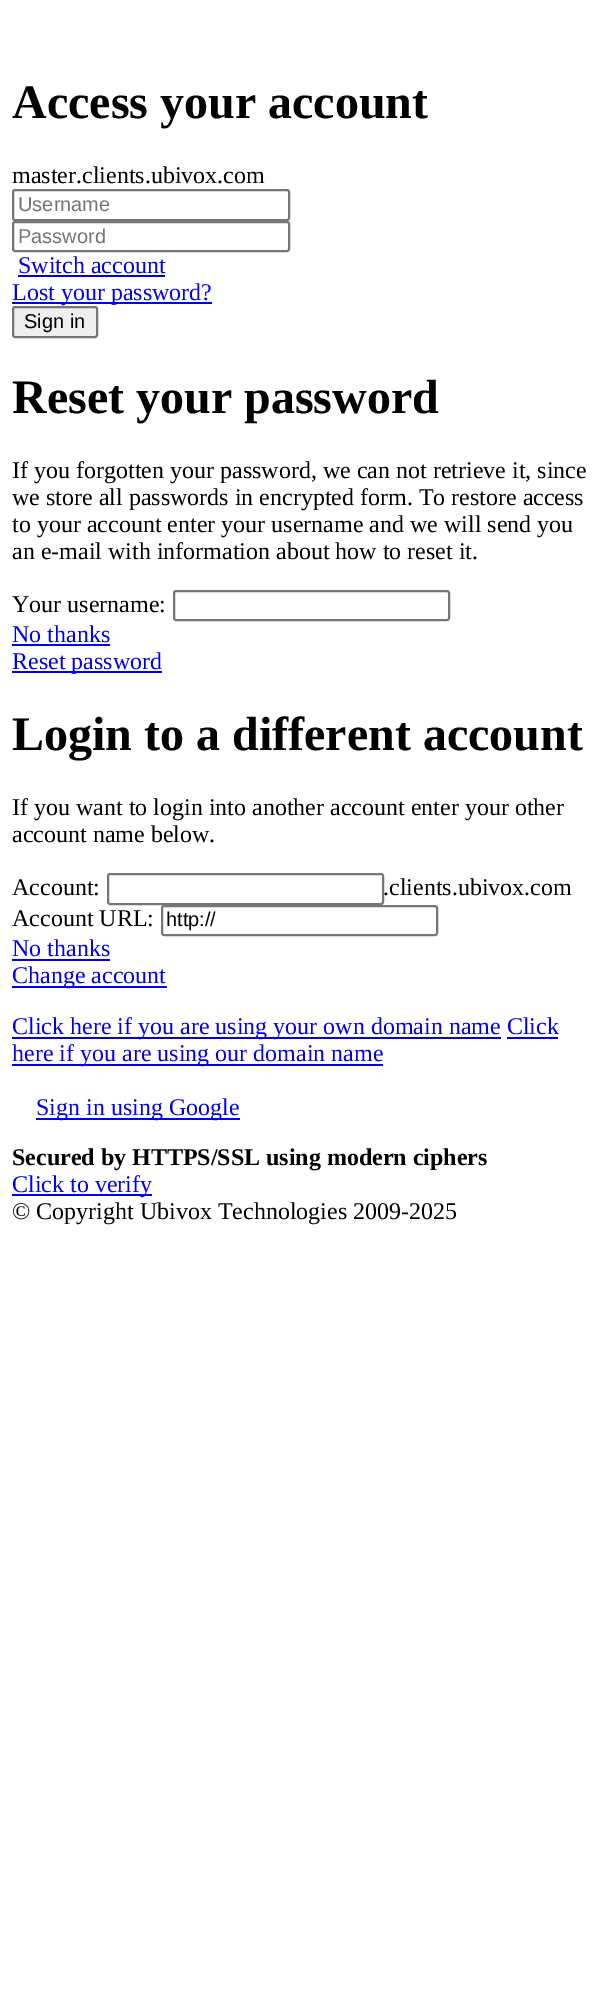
%!PS-Adobe-3.0
%%BoundingBox: 0 0 607 2010
%%LanguageLevel: 3
%%Pages: 1
%%EndComments
%%BeginProlog
/setink { 3 { 255 div 3 1 roll } repeat setrgbcolor } def
/usefont { [ exch dup neg 0 0 3 -1 roll 0 0 ] selectfont } def
/drawtext { setink usefont moveto show } def
/fillbox { setink rectfill } def
/rrect { 5 dict begin { /r /h /w /y /x } { exch def } forall
  x r add y moveto x w add y 2 copy h add r arct x w add y h add x 1 index r arct
  x y h add x y r arct x y 2 copy exch w add exch r arct closepath end } def
%%EndProlog
%%BeginSetup
<< /PageSize [607 2010] >> setpagedevice
%%EndSetup
%%Page: 1 1
0 2010 translate 1 -1 scale
4 setmiterlimit
0 0 607 2010 255 255 255 fillbox
(Access your account) 12 118 /LiberationSerif-Bold 48 0 0 0 drawtext
(master.clients.ubivox.com) 12 183 /LiberationSerif-Regular 24 0 0 0 drawtext
118 118 118 setink
2 setlinewidth
13 190 276 30 2 rrect stroke
(Username) 18 211 /LiberationSans-Regular 20 117 117 117 drawtext
118 118 118 setink
13 222 276 29 2 rrect stroke
(Password) 18 243 /LiberationSans-Regular 20 117 117 117 drawtext
(Switch account) 18 273 /LiberationSerif-Regular 24 0 0 238 drawtext
18 275 147 2 0 0 238 fillbox
12 302 200 2 0 0 238 fillbox
(Lost your password?) 12 300 /LiberationSerif-Regular 24 0 0 238 drawtext
239 239 239 setink
13 307 84 30 2 rrect gsave fill grestore
118 118 118 setink
stroke
(Sign in) 24 328 /LiberationSans-Regular 20 0 0 0 drawtext
(Reset your password) 12 413 /LiberationSerif-Bold 48 0 0 0 drawtext
(If you forgotten your password, we can not retrieve it, since) 12 478 /LiberationSerif-Regular 24 0 0 0 drawtext
(we store all passwords in encrypted form. To restore access) 12 505 /LiberationSerif-Regular 24 0 0 0 drawtext
(to your account enter your username and we will send you) 12 532 /LiberationSerif-Regular 24 0 0 0 drawtext
(an e-mail with information about how to reset it.) 12 559 /LiberationSerif-Regular 24 0 0 0 drawtext
(Your username:) 12 612 /LiberationSerif-Regular 24 0 0 0 drawtext
118 118 118 setink
174 591 275 29 2 rrect stroke
(No thanks) 12 642 /LiberationSerif-Regular 24 0 0 238 drawtext
12 644 98 2 0 0 238 fillbox
12 671 150 2 0 0 238 fillbox
(Reset password) 12 669 /LiberationSerif-Regular 24 0 0 238 drawtext
(Login to a different account) 12 750 /LiberationSerif-Bold 48 0 0 0 drawtext
(If you want to login into another account enter your other) 12 815 /LiberationSerif-Regular 24 0 0 0 drawtext
(account name below.) 12 842 /LiberationSerif-Regular 24 0 0 0 drawtext
(Account:) 12 895 /LiberationSerif-Regular 24 0 0 0 drawtext
118 118 118 setink
108 874 275 30 2 rrect stroke
(.clients.ubivox.com) 383 895 /LiberationSerif-Regular 24 0 0 0 drawtext
(Account URL:) 12 926 /LiberationSerif-Regular 24 0 0 0 drawtext
118 118 118 setink
162 906 275 29 2 rrect stroke
(http://) 166 926 /LiberationSans-Regular 20 0 0 0 drawtext
(No thanks) 12 956 /LiberationSerif-Regular 24 0 0 238 drawtext
12 959 98 2 0 0 238 fillbox
12 986 155 2 0 0 238 fillbox
(Change account) 12 983 /LiberationSerif-Regular 24 0 0 238 drawtext
12 1037 489 2 0 0 238 fillbox
(Click here if you are using your own domain name Click) 12 1034 /LiberationSerif-Regular 24 0 0 238 drawtext
12 1064 371 2 0 0 238 fillbox
(here if you are using our domain name) 12 1061 /LiberationSerif-Regular 24 0 0 238 drawtext
507 1037 51 2 0 0 238 fillbox
36 1118 204 2 0 0 238 fillbox
(Sign in using Google) 36 1115 /LiberationSerif-Regular 24 0 0 238 drawtext
(Secured by HTTPS/SSL using modern ciphers) 12 1165 /LiberationSerif-Bold 24 0 0 0 drawtext
12 1194 140 2 0 0 238 fillbox
(Click to verify) 12 1192 /LiberationSerif-Regular 24 0 0 238 drawtext
(© Copyright Ubivox Technologies 2009-2025) 12 1219 /LiberationSerif-Regular 24 0 0 0 drawtext
showpage
%%EOF
